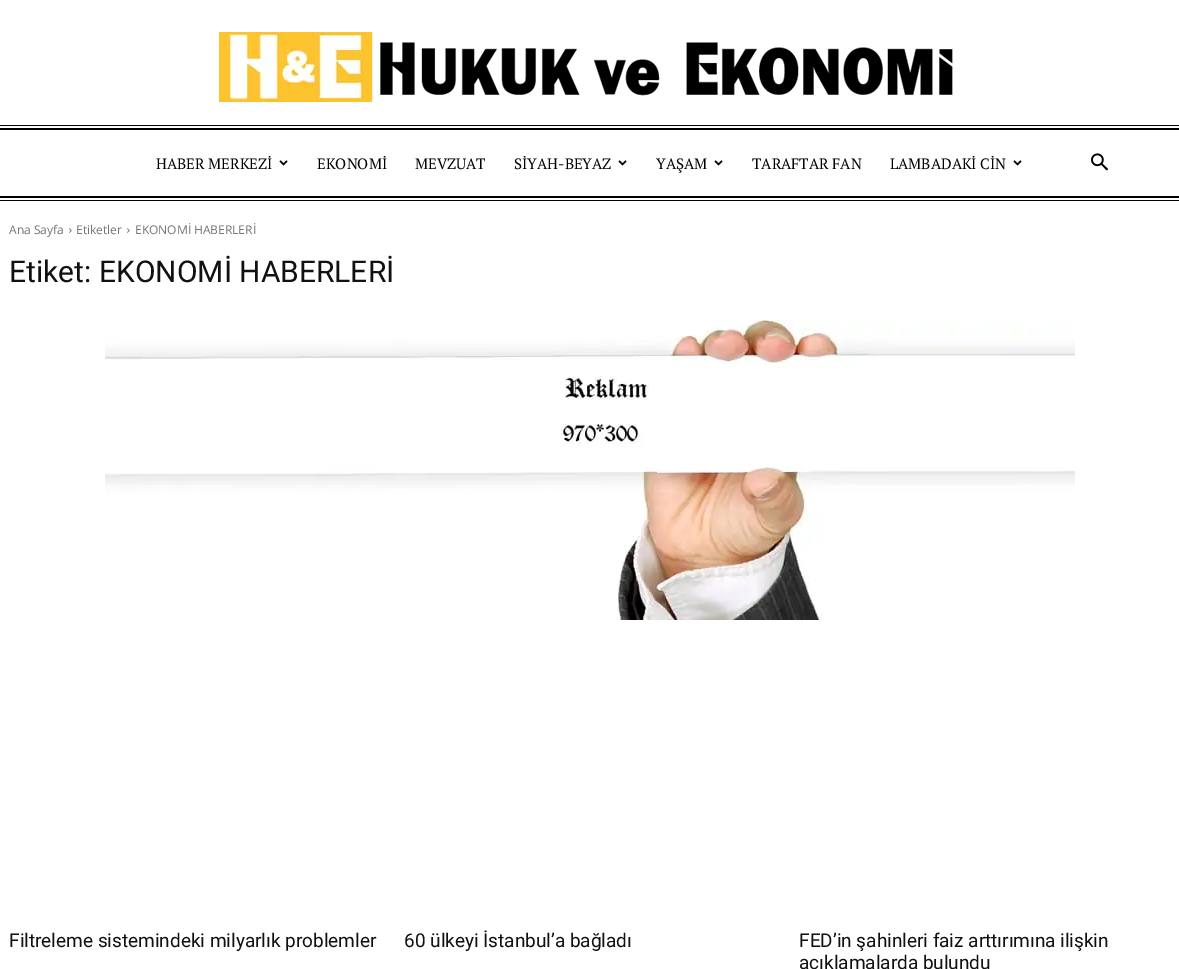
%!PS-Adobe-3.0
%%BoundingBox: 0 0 1179 969
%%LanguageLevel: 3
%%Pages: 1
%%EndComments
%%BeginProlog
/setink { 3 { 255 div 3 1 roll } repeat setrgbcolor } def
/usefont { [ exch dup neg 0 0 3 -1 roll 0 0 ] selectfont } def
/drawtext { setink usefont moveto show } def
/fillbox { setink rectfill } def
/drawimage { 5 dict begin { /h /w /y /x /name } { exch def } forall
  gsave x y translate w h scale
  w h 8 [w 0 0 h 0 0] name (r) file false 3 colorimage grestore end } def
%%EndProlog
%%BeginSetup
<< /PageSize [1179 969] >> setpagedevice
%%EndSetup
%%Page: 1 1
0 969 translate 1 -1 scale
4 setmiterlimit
0 0 1179 969 255 255 255 fillbox
(assets/img1.rgb) 219 32 734 70 drawimage
0 125 1179 1 0 0 0 fillbox
0 128 1179 2 0 0 0 fillbox
(HABER MERKEZİ) 156 169 /PTSerif-Regular 15 0 0 0 drawtext
(assets/img2.rgb) 279 160 9 6 drawimage
(EKONOMİ) 317 169 /PTSerif-Regular 15 0 0 0 drawtext
(MEVZUAT) 415 169 /PTSerif-Regular 15 0 0 0 drawtext
(SİYAH-BEYAZ) 514 169 /PTSerif-Regular 15 0 0 0 drawtext
(assets/img2.rgb) 618 160 9 6 drawimage
(YAŞAM) 656 169 /PTSerif-Regular 15 0 0 0 drawtext
(assets/img2.rgb) 714 160 9 6 drawimage
(TARAFTAR FAN) 752 169 /PTSerif-Regular 15 0 0 0 drawtext
(LAMBADAKİ CİN) 890 169 /PTSerif-Regular 15 0 0 0 drawtext
(assets/img2.rgb) 1013 160 9 6 drawimage
(assets/img3.rgb) 1091 153 17 18 drawimage
0 196 1179 2 0 0 0 fillbox
0 200 1179 1 0 0 0 fillbox
(Ana Sayfa) 9 234 /OpenSans-Regular 12 116 116 116 drawtext
(assets/img4.rgb) 69 228 3 5 drawimage
(Etiketler) 76 234 /OpenSans-Regular 12 116 116 116 drawtext
(assets/img4.rgb) 127 228 3 5 drawimage
(EKONOMİ HABERLERİ) 135 234 /OpenSans-Regular 12 116 116 116 drawtext
(Etiket: EKONOMİ HABERLERİ) 9 282 /Roboto-Regular 30 17 17 17 drawtext
(assets/img5.rgb) 105 320 970 300 drawimage
(Filtreleme sistemindeki milyarlık problemler) 9 947 /Roboto-Regular 19 17 17 17 drawtext
(60 ülkeyi İstanbul’a bağladı) 404 947 /Roboto-Regular 19 17 17 17 drawtext
(FED’in şahinleri faiz arttırımına ilişkin) 799 947 /Roboto-Regular 19 17 17 17 drawtext
(açıklamalarda bulundu) 799 969 /Roboto-Regular 19 17 17 17 drawtext
showpage
%%EOF
